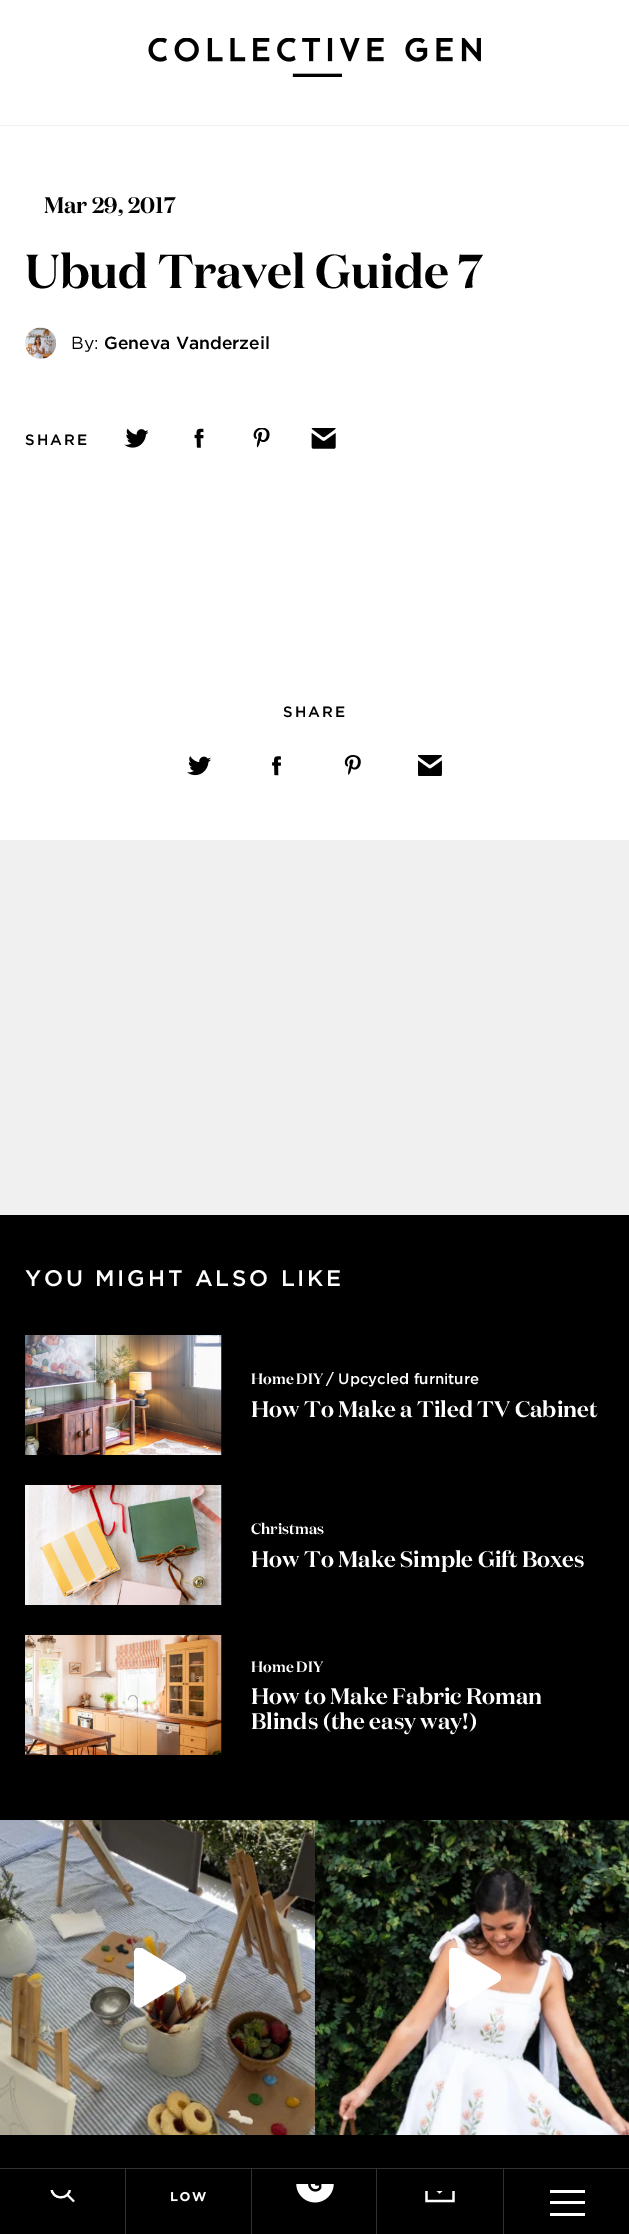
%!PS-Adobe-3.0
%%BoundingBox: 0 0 629 2234
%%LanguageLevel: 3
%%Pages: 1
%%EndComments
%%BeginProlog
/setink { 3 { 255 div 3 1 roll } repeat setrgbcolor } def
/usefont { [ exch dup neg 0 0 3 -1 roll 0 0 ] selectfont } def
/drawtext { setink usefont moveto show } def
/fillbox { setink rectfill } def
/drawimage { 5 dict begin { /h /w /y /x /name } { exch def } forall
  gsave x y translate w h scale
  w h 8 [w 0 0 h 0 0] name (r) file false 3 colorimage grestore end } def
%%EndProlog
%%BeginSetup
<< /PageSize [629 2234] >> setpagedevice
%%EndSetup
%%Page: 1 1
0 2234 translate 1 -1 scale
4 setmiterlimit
0 0 629 2234 255 255 255 fillbox
(assets/img1.rgb) 148 38 333 39 drawimage
0 125 629 1 241 241 241 fillbox
(Mar 29, 2017) 44 213 /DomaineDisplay-SemiBold 22.5 0 0 0 drawtext
(Ubud Travel Guide 7) 25 288 /DomaineDisplay-SemiBold 47.5 0 0 0 drawtext
(assets/img2.rgb) 25 327 32 32 drawimage
(By:) 71 349 /Gotham-Regular 17.5 0 0 0 drawtext
(Geneva Vanderzeil) 104 349 /Gotham-Medium 17.5 0 0 0 drawtext
/Gotham-Medium 15 usefont
25 445 moveto 2 0 (SHARE) ashow
(assets/img3.rgb) 124 428 25 20 drawimage
(assets/img4.rgb) 194 428 10 20 drawimage
(assets/img5.rgb) 253 428 17 20 drawimage
(assets/img6.rgb) 311 428 25 21 drawimage
283 717 moveto 2 0 (SHARE) ashow
(assets/img7.rgb) 187 756 24 20 drawimage
(assets/img8.rgb) 272 756 9 20 drawimage
(assets/img9.rgb) 344 755 17 20 drawimage
(assets/img10.rgb) 418 755 24 21 drawimage
0 840 629 375 240 240 240 fillbox
0 1215 629 953 0 0 0 fillbox
(assets/img11.rgb) 0 1820 315 315 drawimage
gsave
134 1948 52 60 rectclip
255 255 255 setink
183 1973 moveto 142 1948 lineto 139 1946 134 1948 134 1953 curveto 134 2002 lineto 134 2006 139 2009 142 2007 curveto 183 1982 lineto 187 1980 187 1975 183 1973 curveto closepath fill
grestore
(assets/img12.rgb) 315 1820 314 315 drawimage
gsave
449 1948 52 60 rectclip
255 255 255 setink
498 1973 moveto 457 1948 lineto 454 1946 449 1948 449 1953 curveto 449 2002 lineto 449 2006 454 2009 457 2007 curveto 498 1982 lineto 502 1980 502 1975 498 1973 curveto closepath fill
grestore
/Gotham-Medium 22.5 usefont
255 255 255 setink
25 1286 moveto 2.8 0 (YOU MIGHT ALSO LIKE) ashow
(assets/img13.rgb) 25 1335 197 120 drawimage
(Home DIY) 251 1384 /DomaineDisplay-SemiBold 15 255 255 255 drawtext
(/ Upcycled furniture) 326 1384 /Gotham-Medium 15 255 255 255 drawtext
(How To Make a Tiled TV Cabinet) 251 1417 /DomaineDisplay-SemiBold 22.5 255 255 255 drawtext
(assets/img14.rgb) 25 1485 197 120 drawimage
(Christmas) 251 1534 /DomaineDisplay-SemiBold 15 255 255 255 drawtext
(How To Make Simple Gift Boxes) 251 1567 /DomaineDisplay-SemiBold 22.5 255 255 255 drawtext
(assets/img15.rgb) 25 1635 197 120 drawimage
(Home DIY) 251 1672 /DomaineDisplay-SemiBold 15 255 255 255 drawtext
(How to Make Fabric Roman) 251 1704 /DomaineDisplay-SemiBold 22.5 255 255 255 drawtext
(Blinds \(the easy way!\)) 251 1729 /DomaineDisplay-SemiBold 22.5 255 255 255 drawtext
0 2169 629 65 0 0 0 fillbox
0 2168 629 1 50 50 50 fillbox
125 2169 1 65 50 50 50 fillbox
gsave
50 2190 25 25 rectclip
255 255 255 setink
2.1 setlinewidth
70 2188 moveto 70 2200.5 51.5 2200.5 51.5 2188 curveto 51.5 2176 70 2176 70 2188 curveto closepath 67 2194.5 moveto 74 2201.5 lineto stroke
grestore
251 2169 1 65 50 50 50 fillbox
(assets/img16.rgb) 171 2191 35 11 drawimage
376 2169 1 65 50 50 50 fillbox
(assets/img17.rgb) 296 2184 38 19 drawimage
503 2169 1 65 50 50 50 fillbox
gsave
425 2191 30 23 rectclip
255 255 255 setink
2.3 setlinewidth
426.5 2201 moveto 453.5 2201 lineto 453.5 2180 lineto 426.5 2180 lineto closepath 426.5 2180 moveto 439.5 2192 lineto 453 2180 lineto stroke
grestore
550 2213 35 3 255 255 255 fillbox
550 2190 35 3 255 255 255 fillbox
550 2201 35 3 255 255 255 fillbox
showpage
%%EOF
